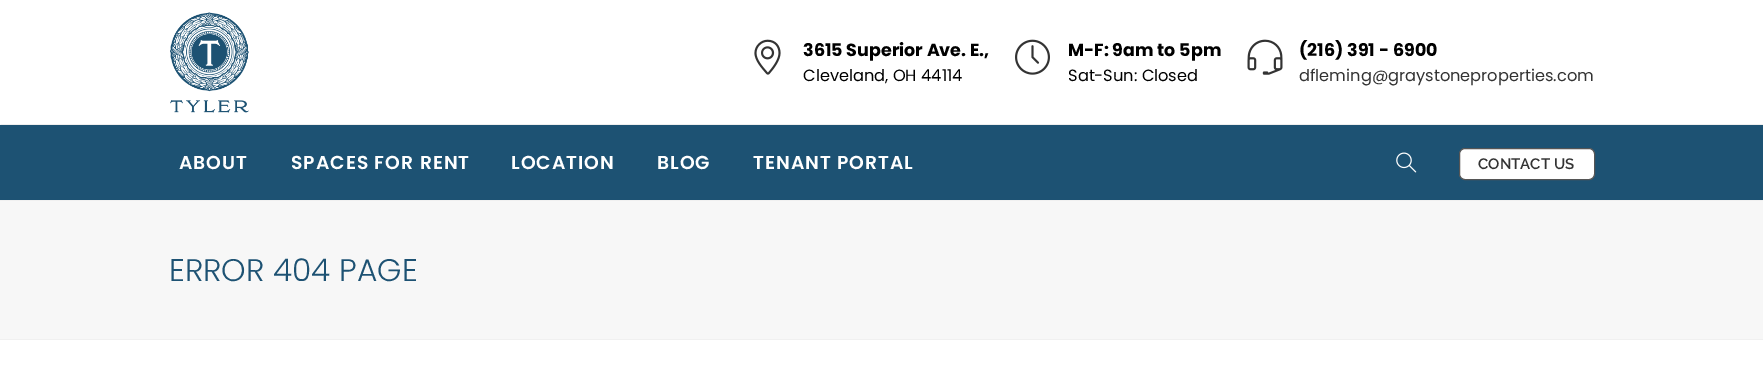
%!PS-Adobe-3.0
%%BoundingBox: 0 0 1763 386
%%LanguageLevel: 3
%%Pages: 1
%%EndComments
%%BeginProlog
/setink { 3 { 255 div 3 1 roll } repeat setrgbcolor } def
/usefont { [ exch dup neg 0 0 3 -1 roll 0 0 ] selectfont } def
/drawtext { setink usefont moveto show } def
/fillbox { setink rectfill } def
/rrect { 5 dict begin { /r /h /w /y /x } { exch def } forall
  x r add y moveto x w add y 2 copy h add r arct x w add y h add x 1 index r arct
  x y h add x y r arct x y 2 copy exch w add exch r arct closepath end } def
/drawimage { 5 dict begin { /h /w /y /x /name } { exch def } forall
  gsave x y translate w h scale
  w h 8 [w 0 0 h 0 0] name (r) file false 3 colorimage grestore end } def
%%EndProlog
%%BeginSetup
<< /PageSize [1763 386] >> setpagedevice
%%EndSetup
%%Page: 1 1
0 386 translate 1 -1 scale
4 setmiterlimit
0 0 1763 386 255 255 255 fillbox
238 238 238 setink
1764 125 moveto 0 125 lineto 1 124 lineto 1762 124 lineto closepath fill
(assets/img1.rgb) 170 12 79 101 drawimage
(assets/img2.rgb) 754 39 27 36 drawimage
(3615 Superior Ave. E.,) 803 56 /Poppins-Bold 17.5 0 0 0 drawtext
(Cleveland, OH 44114) 803 81 /Poppins-Regular 16.25 0 0 0 drawtext
(assets/img3.rgb) 1015 39 35 36 drawimage
(M-F: 9am to 5pm) 1068 56 /Poppins-Bold 17.5 0 0 0 drawtext
(Sat-Sun: Closed) 1068 81 /Poppins-Regular 16.25 0 0 0 drawtext
(assets/img4.rgb) 1247 39 36 36 drawimage
(\(216\) 391 - 6900) 1299 56 /Poppins-Bold 17.5 0 0 0 drawtext
(dfleming@graystoneproperties.com) 1299 81 /Poppins-Regular 16.25 51 51 51 drawtext
0 125 1763 75 29 82 115 fillbox
/Poppins-SemiBold 18.75 usefont
255 255 255 setink
179 169 moveto 1 0 (ABOUT) ashow
291 169 moveto 1 0 (SPACES FOR RENT) ashow
511 169 moveto 1 0 (LOCATION) ashow
657 169 moveto 1 0 (BLOG) ashow
753 169 moveto 1 0 (TENANT PORTAL) ashow
(assets/img5.rgb) 1396 152 21 21 drawimage
1459.5 148.5 135 31 5.5 rrect gsave fill grestore
85 85 85 setink
stroke
(CONTACT US) 1478 169 /Raleway-SemiBold 15 51 51 51 drawtext
0 201 1763 138 247 247 247 fillbox
0 200 1763 1 240 240 240 fillbox
0 339 1763 1 240 240 240 fillbox
(ERROR 404 PAGE) 169 281 /Poppins-Light 31.25 29 82 115 drawtext
showpage
%%EOF
